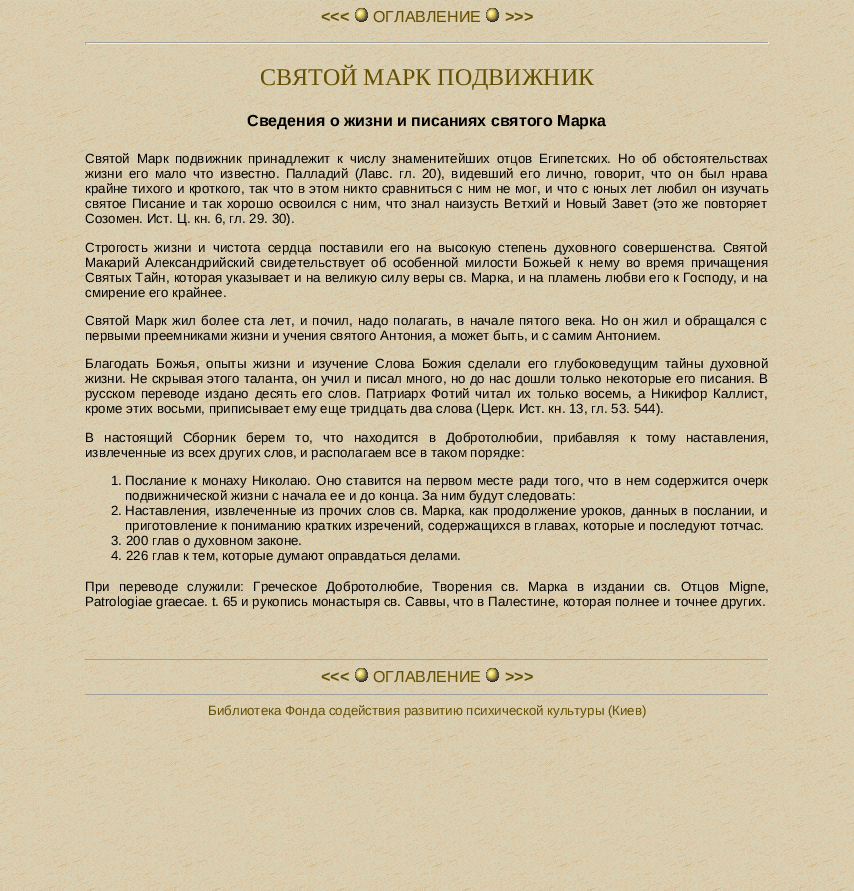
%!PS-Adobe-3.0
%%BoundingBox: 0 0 854 891
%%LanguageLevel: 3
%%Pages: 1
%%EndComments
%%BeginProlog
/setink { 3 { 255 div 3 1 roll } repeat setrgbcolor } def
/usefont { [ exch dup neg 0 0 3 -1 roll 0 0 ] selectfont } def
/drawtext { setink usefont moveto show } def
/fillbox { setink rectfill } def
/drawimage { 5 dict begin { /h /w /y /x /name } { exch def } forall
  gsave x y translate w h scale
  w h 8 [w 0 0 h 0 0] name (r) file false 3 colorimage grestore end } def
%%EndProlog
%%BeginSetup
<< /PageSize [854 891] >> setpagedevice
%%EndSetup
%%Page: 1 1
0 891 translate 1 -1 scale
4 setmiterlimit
0 0 854 891 255 255 255 fillbox
(assets/img1.rgb) 0 0 854 891 drawimage
(<<<) 321 22 /LiberationSans-Bold 16 100 80 0 drawtext
(assets/img2.rgb) 355 8 13 14 drawimage
(ОГЛАВЛЕHИЕ) 373 22 /LiberationSans-Regular 16 100 80 0 drawtext
(assets/img3.rgb) 486 8 13 14 drawimage
(>>>) 505 22 /LiberationSans-Bold 16 100 80 0 drawtext
85 42 684 1 159 159 159 fillbox
768 42 1 2 238 238 238 fillbox
85 43 684 1 238 238 238 fillbox
85 42 1 2 159 159 159 fillbox
(СВЯТОЙ МАРК ПОДВИЖНИК) 260 85 /LiberationSerif-Regular 24 100 80 0 drawtext
(Сведения о жизни и писаниях святого Марка) 247 126 /LiberationSans-Bold 16 0 0 0 drawtext
/LiberationSans-Regular 13.33 usefont
85 163 moveto 3 0 32 (Святой Марк подвижник принадлежит к числу знаменитейших отцов Египетских. Но об обстоятельствах) widthshow
85 178 moveto 2.75 0 32 (жизни его мало что известно. Палладий \(Лавс. гл. 20\), видевший его лично, говорит, что он был нрава) widthshow
85 193 moveto 0.75 0 32 (крайне тихого и кроткого, так что в этом никто сравниться с ним не мог, и что с юных лет любил он изучать) widthshow
85 208 moveto 1.25 0 32 (святое Писание и так хорошо освоился с ним, что знал наизусть Ветхий и Новый Завет \(это же повторяет) widthshow
(Созомен. Ист. Ц. кн. 6, гл. 29. 30\).) 85 223 /LiberationSans-Regular 13.33 0 0 0 drawtext
85 252 moveto 3.1 0 32 (Строгость жизни и чистота сердца поставили его на высокую степень духовного совершенства. Святой) widthshow
85 267 moveto 2.6 0 32 (Макарий Александрийский свидетельствует об особенной милости Божьей к нему во время причащения) widthshow
85 282 moveto 0.4 0 32 (Святых Тайн, которая указывает и на великую силу веры св. Марка, и на пламень любви его к Господу, и на) widthshow
(смирение его крайнее.) 85 297 /LiberationSans-Regular 13.33 0 0 0 drawtext
85 325 moveto 1.5 0 32 (Святой Марк жил более ста лет, и почил, надо полагать, в начале пятого века. Но он жил и обращался с) widthshow
(первыми преемниками жизни и учения святого Антония, а может быть, и с самим Антонием.) 85 340 /LiberationSans-Regular 13.33 0 0 0 drawtext
85 368 moveto 3.25 0 32 (Благодать Божья, опыты жизни и изучение Слова Божия сделали его глубоковедущим тайны духовной) widthshow
85 383 moveto 0.6 0 32 (жизни. Не скрывая этого таланта, он учил и писал много, но до нас дошли только некоторые его писания. В) widthshow
85 398 moveto 2 0 32 (русском переводе издано десять его слов. Патриарх Фотий читал их только восемь, а Никифор Каллист,) widthshow
(кроме этих восьми, приписывает ему еще тридцать два слова \(Церк. Ист. кн. 13, гл. 53. 544\).) 85 413 /LiberationSans-Regular 13.33 0 0 0 drawtext
85 442 moveto 6.75 0 32 (В настоящий Сборник берем то, что находится в Добротолюбии, прибавляя к тому наставления,) widthshow
(извлеченные из всех других слов, и располагаем все в таком порядке:) 85 457 /LiberationSans-Regular 13.33 0 0 0 drawtext
(1.) 111 485 /LiberationSans-Regular 13.33 0 0 0 drawtext
125 485 moveto 1.4 0 32 (Послание к монаху Николаю. Оно ставится на первом месте ради того, что в нем содержится очерк) widthshow
(подвижнической жизни с начала ее и до конца. За ним будут следовать:) 125 500 /LiberationSans-Regular 13.33 0 0 0 drawtext
(2.) 111 515 /LiberationSans-Regular 13.33 0 0 0 drawtext
125 515 moveto 0.75 0 32 (Наставления, извлеченные из прочих слов св. Марка, как продолжение уроков, данных в послании, и) widthshow
(приготовление к пониманию кратких изречений, содержащихся в главах, которые и последуют тотчас.) 125 530 /LiberationSans-Regular 13.33 0 0 0 drawtext
(3. 200 глав о духовном законе.) 111 545 /LiberationSans-Regular 13.33 0 0 0 drawtext
(4. 226 глав к тем, которые думают оправдаться делами.) 111 560 /LiberationSans-Regular 13.33 0 0 0 drawtext
85 591 moveto 5.75 0 32 (При переводе служили: Греческое Добротолюбие, Творения св. Марка в издании св. Отцов Migne,) widthshow
(Patrologiae graecae. t. 65 и рукопись монастыря св. Саввы, что в Палестине, которая полнее и точнее других.) 85 606 /LiberationSans-Regular 13.33 0 0 0 drawtext
85 659 684 1 159 159 159 fillbox
768 659 1 1 238 238 238 fillbox
(<<<) 321 682 /LiberationSans-Bold 16 100 80 0 drawtext
(assets/img4.rgb) 355 668 13 14 drawimage
(ОГЛАВЛЕHИЕ) 373 682 /LiberationSans-Regular 16 100 80 0 drawtext
(assets/img5.rgb) 486 668 13 14 drawimage
(>>>) 505 682 /LiberationSans-Bold 16 100 80 0 drawtext
85 694 684 1 159 159 159 fillbox
768 694 1 1 238 238 238 fillbox
(Библиотека Фонда содействия развитию психической культуры \(Киев\)) 208 715 /LiberationSans-Regular 13.33 100 80 0 drawtext
showpage
%%EOF
